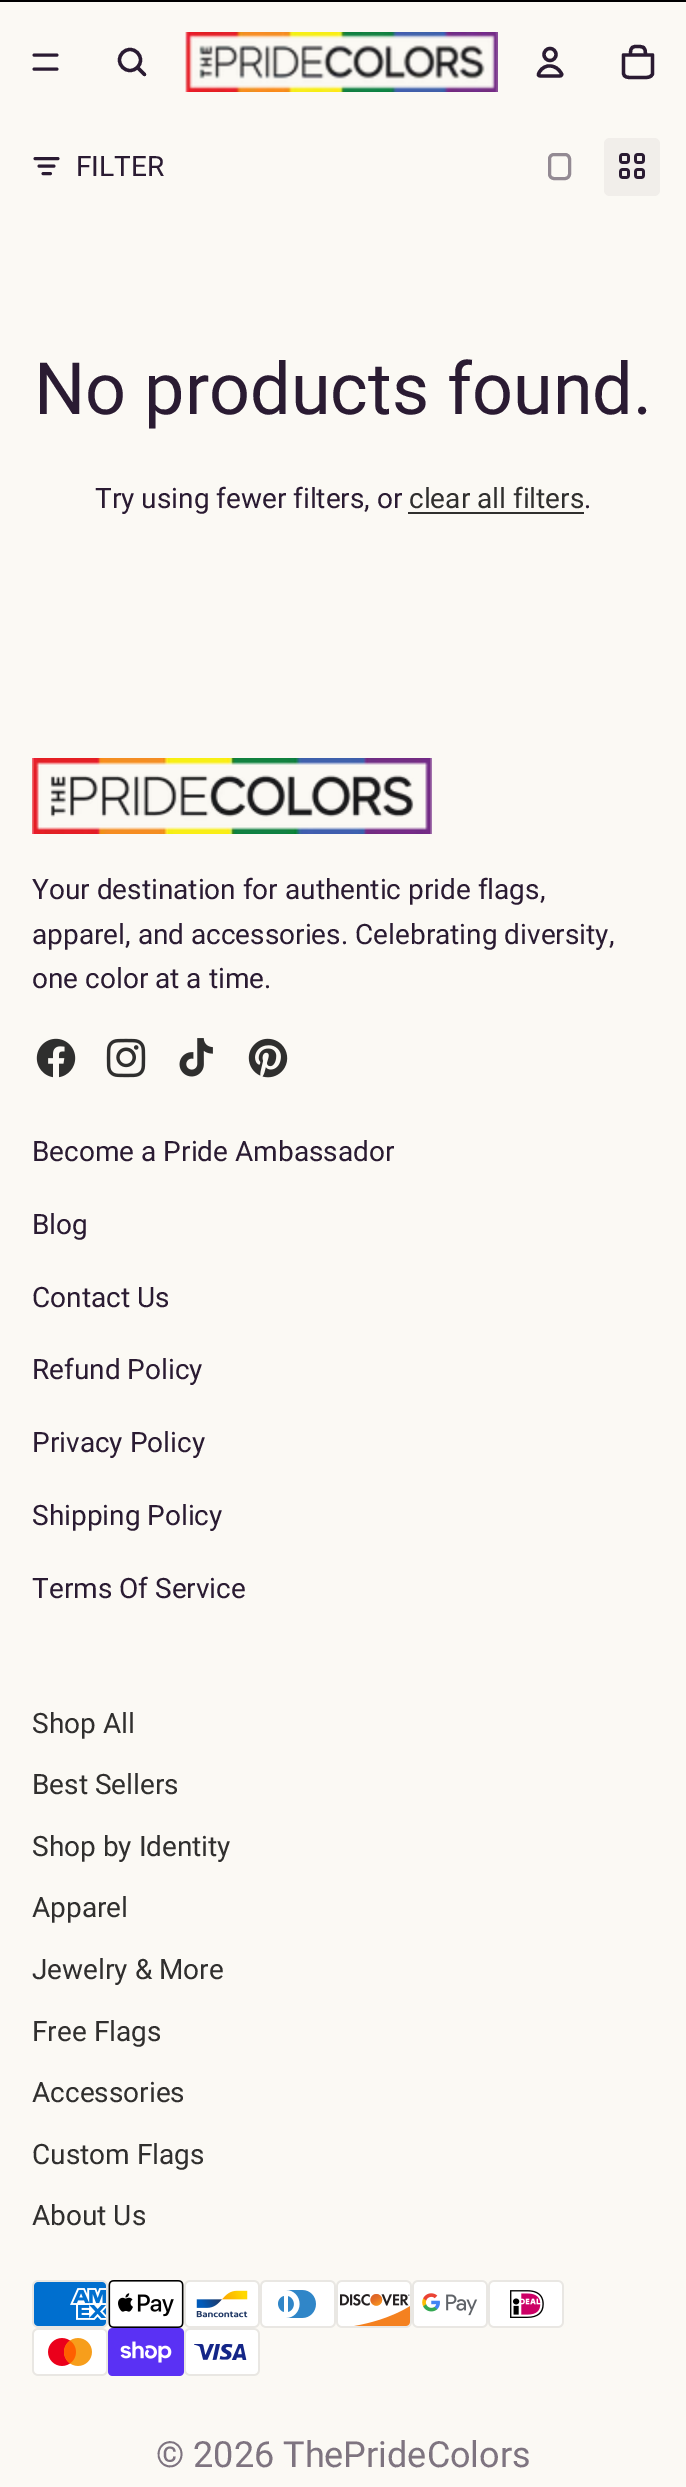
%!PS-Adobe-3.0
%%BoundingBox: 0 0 686 2487
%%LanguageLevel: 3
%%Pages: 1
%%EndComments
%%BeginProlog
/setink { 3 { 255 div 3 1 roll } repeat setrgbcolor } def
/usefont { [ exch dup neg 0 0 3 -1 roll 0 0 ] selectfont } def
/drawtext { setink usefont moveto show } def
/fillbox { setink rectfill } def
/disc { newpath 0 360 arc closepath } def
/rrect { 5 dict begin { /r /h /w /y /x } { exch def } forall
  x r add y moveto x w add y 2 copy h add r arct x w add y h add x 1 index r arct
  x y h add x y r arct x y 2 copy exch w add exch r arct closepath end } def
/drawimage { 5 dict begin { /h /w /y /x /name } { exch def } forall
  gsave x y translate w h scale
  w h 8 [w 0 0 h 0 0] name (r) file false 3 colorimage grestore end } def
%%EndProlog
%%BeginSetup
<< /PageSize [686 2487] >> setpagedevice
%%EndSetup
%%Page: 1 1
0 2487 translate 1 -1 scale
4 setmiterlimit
0 0 686 2487 0 0 0 fillbox
0 2 686 2485 251 249 244 fillbox
42 27 50 setink
2.9 setlinewidth
1 setlinecap
34 55 moveto 57 55 lineto 34 69 moveto 57 69 lineto stroke
3.3 setlinewidth
0 setlinecap
130 60 10.5 disc stroke
1 setlinecap
1 setlinejoin
137.5 67.5 moveto 144.5 74.5 lineto stroke
(assets/img1.rgb) 185 32 313 60 drawimage
0 setlinecap
0 setlinejoin
550 54.5 6 disc stroke
1 setlinecap
1 setlinejoin
539.5 72 moveto 537 76 538.5 76 543 76 curveto 557 76 lineto 557.5 76 561 76.5 561.5 75 curveto 562 74.5 561.5 73.5 561 73 curveto 556.5 64.5 544.5 63 539.5 72 curveto stroke
623.5 55 moveto 652.5 55 lineto 652.5 74 lineto 651 77.5 647.5 77.5 644.5 77.5 curveto 631.5 77.5 lineto 628 77.5 623.5 77.5 623.5 73 curveto closepath 635.5 46.5 moveto 643.5 46.5 645.5 46 645.5 55 curveto 630.5 55 lineto 630.5 51.5 630 46.5 635.5 46.5 curveto stroke
2.9 setlinewidth
0 setlinejoin
58 158.5 moveto 35 158.5 lineto 54 166 moveto 39 166 lineto 43 173.5 moveto 50.5 173.5 lineto stroke
(FILTER) 76 176 /Roboto-Regular 28 42 27 50 drawtext
147 138 147 setink
3 setlinewidth
0 setlinecap
549.5 154.5 20 24 4.5 rrect stroke
241 238 234 setink
604 138 56 58 6 rrect fill
(assets/img2.rgb) 619 153 26 26 drawimage
(No products found.) 34 414 /Roboto-Regular 72 42 27 50 drawtext
(Try using fewer filters, or) 95 508 /Roboto-Regular 28 42 27 50 drawtext
(clear all filters) 409 508 /Roboto-Regular 28 48 47 46 drawtext
408 512 176 2 48 47 46 fillbox
(.) 584 508 /Roboto-Regular 28 42 27 50 drawtext
(assets/img3.rgb) 32 758 400 76 drawimage
(Your destination for authentic pride flags,) 32 899 /Roboto-Regular 28 42 27 50 drawtext
(apparel, and accessories. Celebrating diversity,) 32 944 /Roboto-Regular 28 42 27 50 drawtext
(one color at a time.) 32 988 /Roboto-Regular 28 42 27 50 drawtext
(assets/img4.rgb) 36 1038 40 40 drawimage
(assets/img5.rgb) 106 1038 40 40 drawimage
(assets/img6.rgb) 179 1038 34 39 drawimage
(assets/img7.rgb) 248 1038 40 40 drawimage
(Become a Pride Ambassador) 32 1161 /Roboto-Regular 28 42 27 50 drawtext
(Blog) 32 1234 /Roboto-Regular 28 42 27 50 drawtext
(Contact Us) 32 1307 /Roboto-Regular 28 42 27 50 drawtext
(Refund Policy) 32 1379 /Roboto-Regular 28 42 27 50 drawtext
(Privacy Policy) 32 1452 /Roboto-Regular 28 42 27 50 drawtext
(Shipping Policy) 32 1525 /Roboto-Regular 28 42 27 50 drawtext
(Terms Of Service) 32 1598 /Roboto-Regular 28 42 27 50 drawtext
(Shop All) 32 1733 /Roboto-Regular 28 48 47 46 drawtext
(Best Sellers) 32 1794 /Roboto-Regular 28 48 47 46 drawtext
(Shop by Identity) 32 1856 /Roboto-Regular 28 48 47 46 drawtext
(Apparel) 32 1917 /Roboto-Regular 28 48 47 46 drawtext
(Jewelry & More) 32 1979 /Roboto-Regular 28 48 47 46 drawtext
(Free Flags) 32 2041 /Roboto-Regular 28 48 47 46 drawtext
(Accessories) 32 2102 /Roboto-Regular 28 48 47 46 drawtext
(Custom Flags) 32 2164 /Roboto-Regular 28 48 47 46 drawtext
(About Us) 32 2225 /Roboto-Regular 28 48 47 46 drawtext
(assets/img8.rgb) 32 2280 76 48 drawimage
(assets/img9.rgb) 108 2280 76 48 drawimage
(assets/img10.rgb) 184 2280 76 48 drawimage
(assets/img11.rgb) 260 2280 76 48 drawimage
(assets/img12.rgb) 336 2280 76 48 drawimage
(assets/img13.rgb) 412 2280 76 48 drawimage
(assets/img14.rgb) 488 2280 76 48 drawimage
(assets/img15.rgb) 32 2328 76 48 drawimage
(assets/img16.rgb) 108 2328 76 48 drawimage
(assets/img17.rgb) 184 2328 76 48 drawimage
(© 2026 ThePrideColors) 156 2467 /Roboto-Regular 36 126 116 128 drawtext
showpage
%%EOF
